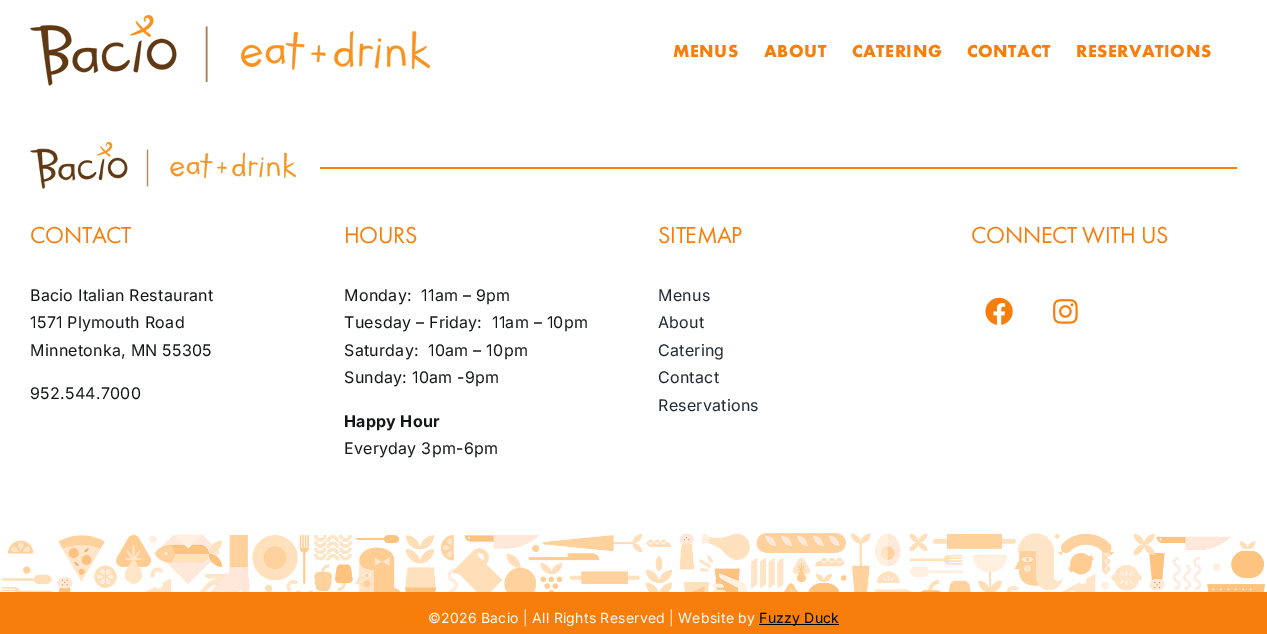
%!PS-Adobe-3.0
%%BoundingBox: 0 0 1267 634
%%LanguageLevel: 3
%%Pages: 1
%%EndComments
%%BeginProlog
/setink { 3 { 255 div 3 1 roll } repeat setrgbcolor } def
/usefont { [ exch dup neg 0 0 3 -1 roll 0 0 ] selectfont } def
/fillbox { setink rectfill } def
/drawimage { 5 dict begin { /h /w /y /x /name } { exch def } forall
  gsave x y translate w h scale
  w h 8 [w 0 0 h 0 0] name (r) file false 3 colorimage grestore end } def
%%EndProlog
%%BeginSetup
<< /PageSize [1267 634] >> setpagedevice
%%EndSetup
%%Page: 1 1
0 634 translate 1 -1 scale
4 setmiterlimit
0 0 1267 634 255 255 255 fillbox
(assets/img1.rgb) 30 15 400 71 drawimage
/FuturaPT-Bold 18 usefont
247 126 11 setink
673 57 moveto 0.5 0 (MENUS) ashow
764 57 moveto 0.5 0 (ABOUT) ashow
852 57 moveto 0.5 0 (CATERING) ashow
967 57 moveto 0.5 0 (CONTACT) ashow
1076 57 moveto 0.5 0 (RESERVATIONS) ashow
(assets/img2.rgb) 30 142 266 47 drawimage
320 167 917 2 247 126 11 fillbox
/FuturaPT-Regular 24 usefont
30 243 moveto -0.4 0 (CONTACT) ashow
/Inter-Regular 16 usefont
20 22 23 setink
30 301 moveto 0.25 0 (Bacio Italian Restaurant) ashow
30 328 moveto 0.25 0 (1571 Plymouth Road) ashow
30 356 moveto 0.25 0 (Minnetonka, MN 55305) ashow
30 399 moveto 0.25 0 (952.544.7000) ashow
/FuturaPT-Regular 24 usefont
247 126 11 setink
344 243 moveto -0.4 0 (HOURS) ashow
/Inter-Regular 16 usefont
20 22 23 setink
344 301 moveto 0.25 0 (Monday:  11am – 9pm) ashow
344 328 moveto 0.25 0 (Tuesday – Friday:  11am – 10pm) ashow
344 356 moveto 0.25 0 (Saturday:  10am – 10pm) ashow
344 383 moveto 0.25 0 (Sunday: 10am -9pm) ashow
/Inter-Bold 16 usefont
344 427 moveto 0.25 0 (Happy Hour) ashow
/Inter-Regular 16 usefont
344 454 moveto 0.25 0 (Everyday 3pm-6pm) ashow
/FuturaPT-Regular 24 usefont
247 126 11 setink
658 243 moveto -0.4 0 (SITEMAP) ashow
/Inter-Regular 16 usefont
33 41 52 setink
658 301 moveto 0.25 0 (Menus) ashow
658 328 moveto 0.25 0 (About) ashow
658 356 moveto 0.25 0 (Catering) ashow
658 383 moveto 0.25 0 (Contact) ashow
658 411 moveto 0.25 0 (Reservations) ashow
/FuturaPT-Regular 24 usefont
247 126 11 setink
971 243 moveto -0.4 0 (CONNECT WITH US) ashow
(assets/img3.rgb) 985 297 28 28 drawimage
(assets/img4.rgb) 1053 299 25 25 drawimage
(assets/img5.rgb) 2 533 1263 59 drawimage
0 592 1267 42 247 126 11 fillbox
/Inter-Regular 14 usefont
255 255 255 setink
428 623 moveto 0.25 0 (©2026 Bacio | All Rights Reserved | Website by) ashow
759 624 80 1 0 0 0 fillbox
759 623 moveto 0.25 0 (Fuzzy Duck) ashow
showpage
%%EOF
